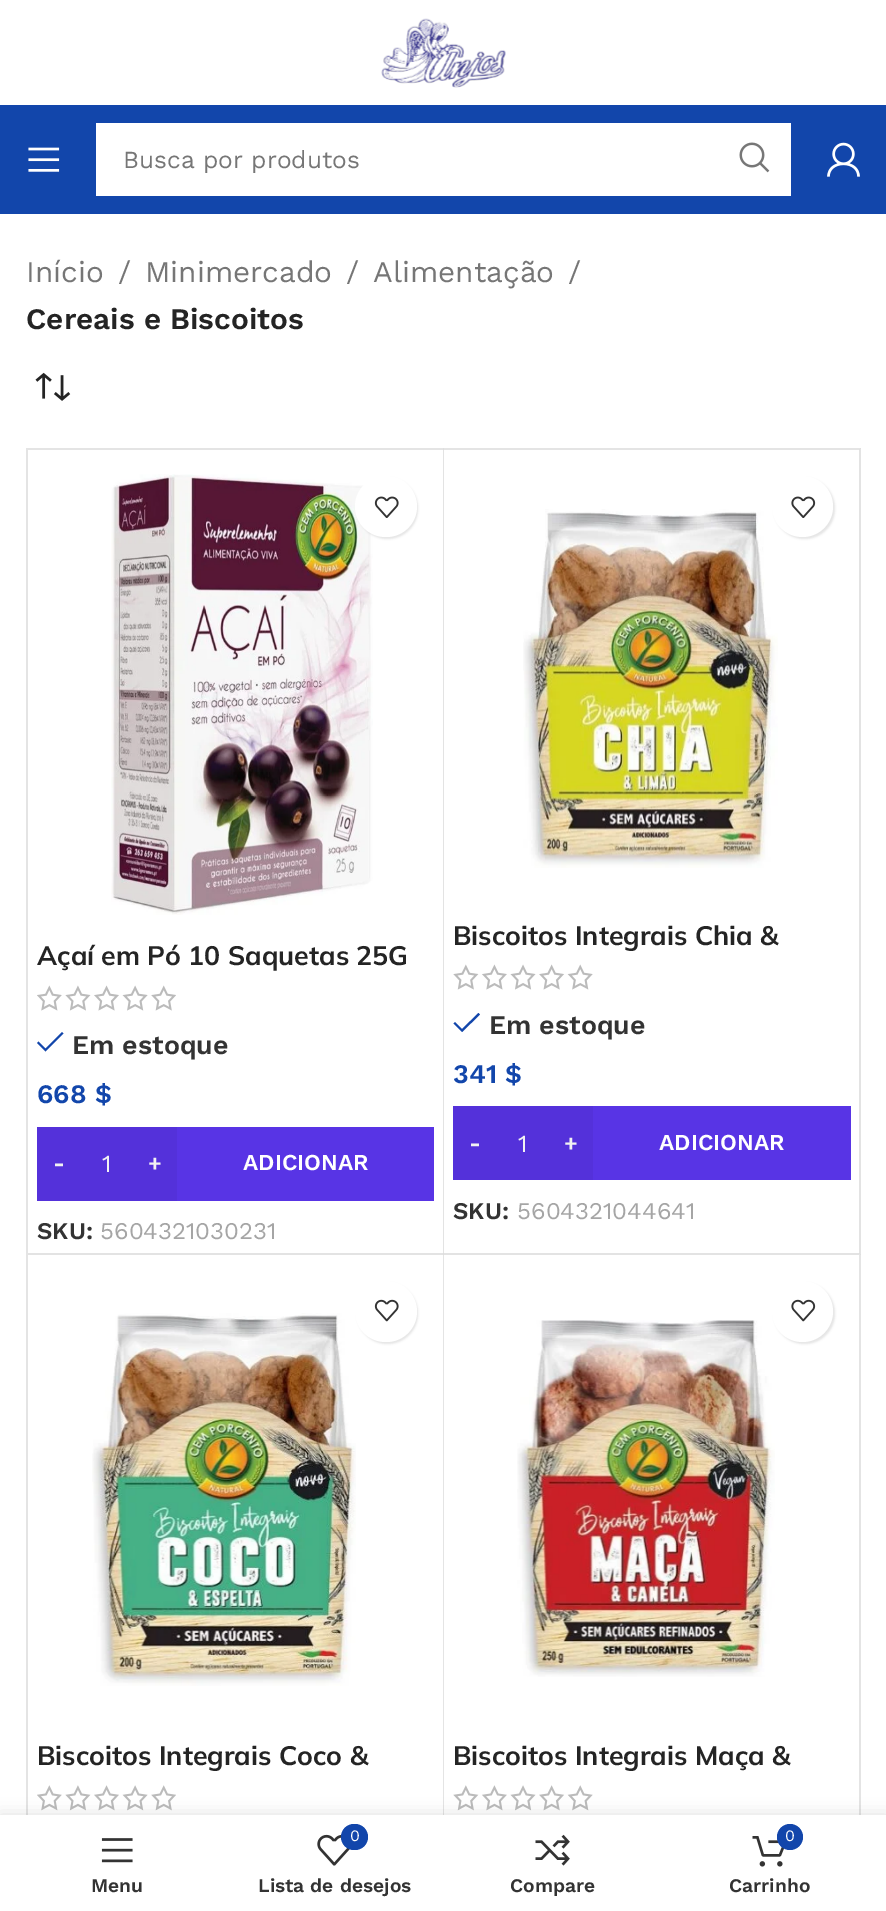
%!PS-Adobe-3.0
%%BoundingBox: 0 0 886 1911
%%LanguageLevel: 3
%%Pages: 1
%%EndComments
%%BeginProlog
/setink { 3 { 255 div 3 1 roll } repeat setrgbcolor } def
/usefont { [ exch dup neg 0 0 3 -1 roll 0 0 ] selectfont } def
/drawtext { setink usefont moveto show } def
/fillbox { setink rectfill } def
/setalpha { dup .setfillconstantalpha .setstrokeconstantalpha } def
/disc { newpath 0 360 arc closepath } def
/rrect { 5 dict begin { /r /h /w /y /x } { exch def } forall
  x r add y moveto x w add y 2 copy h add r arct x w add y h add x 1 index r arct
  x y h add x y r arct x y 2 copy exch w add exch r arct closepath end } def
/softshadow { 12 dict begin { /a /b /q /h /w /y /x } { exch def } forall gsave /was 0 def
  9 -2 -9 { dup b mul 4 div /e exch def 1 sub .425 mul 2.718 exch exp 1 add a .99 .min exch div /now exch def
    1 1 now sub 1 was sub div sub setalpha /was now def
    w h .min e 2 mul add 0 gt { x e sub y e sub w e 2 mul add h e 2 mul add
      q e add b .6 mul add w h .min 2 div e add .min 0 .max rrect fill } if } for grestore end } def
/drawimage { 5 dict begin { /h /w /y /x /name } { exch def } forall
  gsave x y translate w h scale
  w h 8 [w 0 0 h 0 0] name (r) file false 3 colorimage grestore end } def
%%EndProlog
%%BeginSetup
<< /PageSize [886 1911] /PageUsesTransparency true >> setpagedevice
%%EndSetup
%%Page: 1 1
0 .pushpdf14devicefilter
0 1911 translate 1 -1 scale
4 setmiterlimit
0 0 886 1911 255 255 255 fillbox
(assets/img1.rgb) 381 18 125 70 drawimage
0 105 886 109 18 70 171 fillbox
(assets/img2.rgb) 28 147 32 25 drawimage
96 123 695 73 255 255 255 fillbox
gsave
123 145 542 28 rectclip
(Busca por produtos) 123 168 /WorkSans-Regular 24.5 118 118 118 drawtext
grestore
(assets/img3.rgb) 739 142 31 31 drawimage
(assets/img4.rgb) 827 142 33 35 drawimage
(Início) 26 282 /WorkSans-Regular 29.75 118 118 118 drawtext
(/) 118 282 /WorkSans-Regular 29.75 118 118 118 drawtext
(Minimercado) 145 282 /WorkSans-Regular 29.75 118 118 118 drawtext
(/) 346 282 /WorkSans-Regular 29.75 118 118 118 drawtext
(Alimentação) 373 282 /WorkSans-Regular 29.75 118 118 118 drawtext
(/) 568 282 /WorkSans-Regular 29.75 118 118 118 drawtext
(Cereais e Biscoitos) 26 329 /WorkSans-SemiBold 29.75 36 36 36 drawtext
(assets/img5.rgb) 35 372 36 29 drawimage
26 448 2 1367 228 228 228 fillbox
28 448 moveto 444 448 lineto 443 450 lineto 28 450 lineto closepath fill
0.11 setalpha
0 0 0 setink
444 448 moveto 444 1255 lineto 443 1253 lineto 443 450 lineto closepath fill
444 1255 moveto 28 1255 lineto 28 1253 lineto 443 1253 lineto closepath fill
1 setalpha
(assets/img6.rgb) 111 474 262 441 drawimage
357 478 61 61 30.5 1 0.1 softshadow
255 255 255 setink
355 476 62 61 30.5 rrect fill
(assets/img7.rgb) 374 496 25 22 drawimage
(Açaí em Pó 10 Saquetas 25G) 37 965 /Mulish-Bold 26.75 36 36 36 drawtext
(assets/img8.rgb) 37 985 139 26 drawimage
18 70 171 setink
63.5 1033.5 moveto 62 1032 lineto 45.5 1048.5 lineto 38.5 1041.5 lineto 37 1043 lineto 45.5 1051.5 lineto closepath fill
(Em estoque) 72 1054 /WorkSans-SemiBold 26.75 51 51 51 drawtext
(668 $) 37 1103 /WorkSans-SemiBold 26.75 18 70 171 drawtext
37 1127 140 74 84 49 218 fillbox
(-) 53 1171 /WorkSans-SemiBold 22.75 242 242 242 drawtext
(1) 102 1172 /WorkSans-Regular 24.5 242 242 242 drawtext
(+) 148 1171 /WorkSans-SemiBold 22.75 242 242 242 drawtext
177 1127 257 74 88 52 229 fillbox
(ADICIONAR) 243 1170 /WorkSans-SemiBold 22.75 255 255 255 drawtext
(SKU:) 37 1239 /WorkSans-SemiBold 24 51 51 51 drawtext
(5604321030231) 100 1239 /WorkSans-Regular 24 165 165 165 drawtext
228 228 228 setink
444 448 moveto 861 448 lineto 859 450 lineto 444 450 lineto closepath fill
0.11 setalpha
0 0 0 setink
861 448 moveto 861 1255 lineto 859 1253 lineto 859 450 lineto closepath fill
861 1255 moveto 444 1255 lineto 444 1253 lineto 859 1253 lineto closepath fill
1 setalpha
(assets/img9.rgb) 523 509 255 359 drawimage
774 478 61 61 30.5 1 0.1 softshadow
255 255 255 setink
802.5 506.5 30.5 disc fill
(assets/img10.rgb) 791 496 25 22 drawimage
(Biscoitos Integrais Chia &) 453 945 /Mulish-Bold 26.75 36 36 36 drawtext
(assets/img11.rgb) 453 964 140 26 drawimage
18 70 171 setink
480 1014.5 moveto 478.5 1013 lineto 462 1029 lineto 455 1022 lineto 453.5 1023.5 lineto 462 1032 lineto closepath fill
(Em estoque) 489 1034 /WorkSans-SemiBold 26.75 51 51 51 drawtext
(341 $) 453 1083 /WorkSans-SemiBold 26.75 18 70 171 drawtext
453 1106 140 74 84 49 218 fillbox
(-) 469 1151 /WorkSans-SemiBold 22.75 242 242 242 drawtext
(1) 518 1152 /WorkSans-Regular 24.5 242 242 242 drawtext
(+) 564 1151 /WorkSans-SemiBold 22.75 242 242 242 drawtext
593 1106 258 74 88 52 229 fillbox
(ADICIONAR) 659 1150 /WorkSans-SemiBold 22.75 255 255 255 drawtext
(SKU:) 453 1219 /WorkSans-SemiBold 24 51 51 51 drawtext
(5604321044641) 517 1219 /WorkSans-Regular 24 165 165 165 drawtext
228 228 228 setink
444 1255 moveto 444 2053 lineto 443 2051 lineto 443 1255 lineto closepath fill
(assets/img12.rgb) 92 1313 264 373 drawimage
0 0 0 setink
357 1283 61 61 30.5 1 0.1 softshadow
255 255 255 setink
355 1281 62 61 30.5 rrect fill
(assets/img13.rgb) 374 1299 25 23 drawimage
(Biscoitos Integrais Coco &) 37 1765 /Mulish-Bold 26.75 36 36 36 drawtext
(assets/img14.rgb) 37 1785 139 26 drawimage
228 228 228 setink
861 1255 moveto 861 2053 lineto 859 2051 lineto 859 1255 lineto closepath fill
(assets/img15.rgb) 517 1320 258 357 drawimage
0 0 0 setink
774 1283 61 61 30.5 1 0.1 softshadow
255 255 255 setink
802.5 1311.5 30.5 disc fill
(assets/img16.rgb) 791 1299 25 23 drawimage
(Biscoitos Integrais Maça &) 453 1765 /Mulish-Bold 26.75 36 36 36 drawtext
(assets/img17.rgb) 453 1785 140 26 drawimage
0 0 0 setink
0 1815 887 96 0 8 0.12 softshadow
0 1815 886 96 255 255 255 fillbox
(assets/img18.rgb) 101 1838 32 25 drawimage
(Menu) 91 1892 /WorkSans-SemiBold 19.25 51 51 51 drawtext
(assets/img19.rgb) 317 1834 33 32 drawimage
18 70 171 setink
341 1824 27 26 13 rrect fill
(0) 350 1841 /WorkSans-Regular 16 255 255 255 drawtext
(Lista de desejos) 258 1892 /WorkSans-SemiBold 19.25 51 51 51 drawtext
(assets/img20.rgb) 535 1834 35 32 drawimage
(Compare) 510 1892 /WorkSans-SemiBold 19.25 51 51 51 drawtext
(assets/img21.rgb) 752 1836 33 31 drawimage
18 70 171 setink
790 1837 13 disc fill
(0) 785 1841 /WorkSans-Regular 16 255 255 255 drawtext
(Carrinho) 729 1892 /WorkSans-SemiBold 19.25 51 51 51 drawtext
.poppdf14devicefilter showpage
%%EOF
